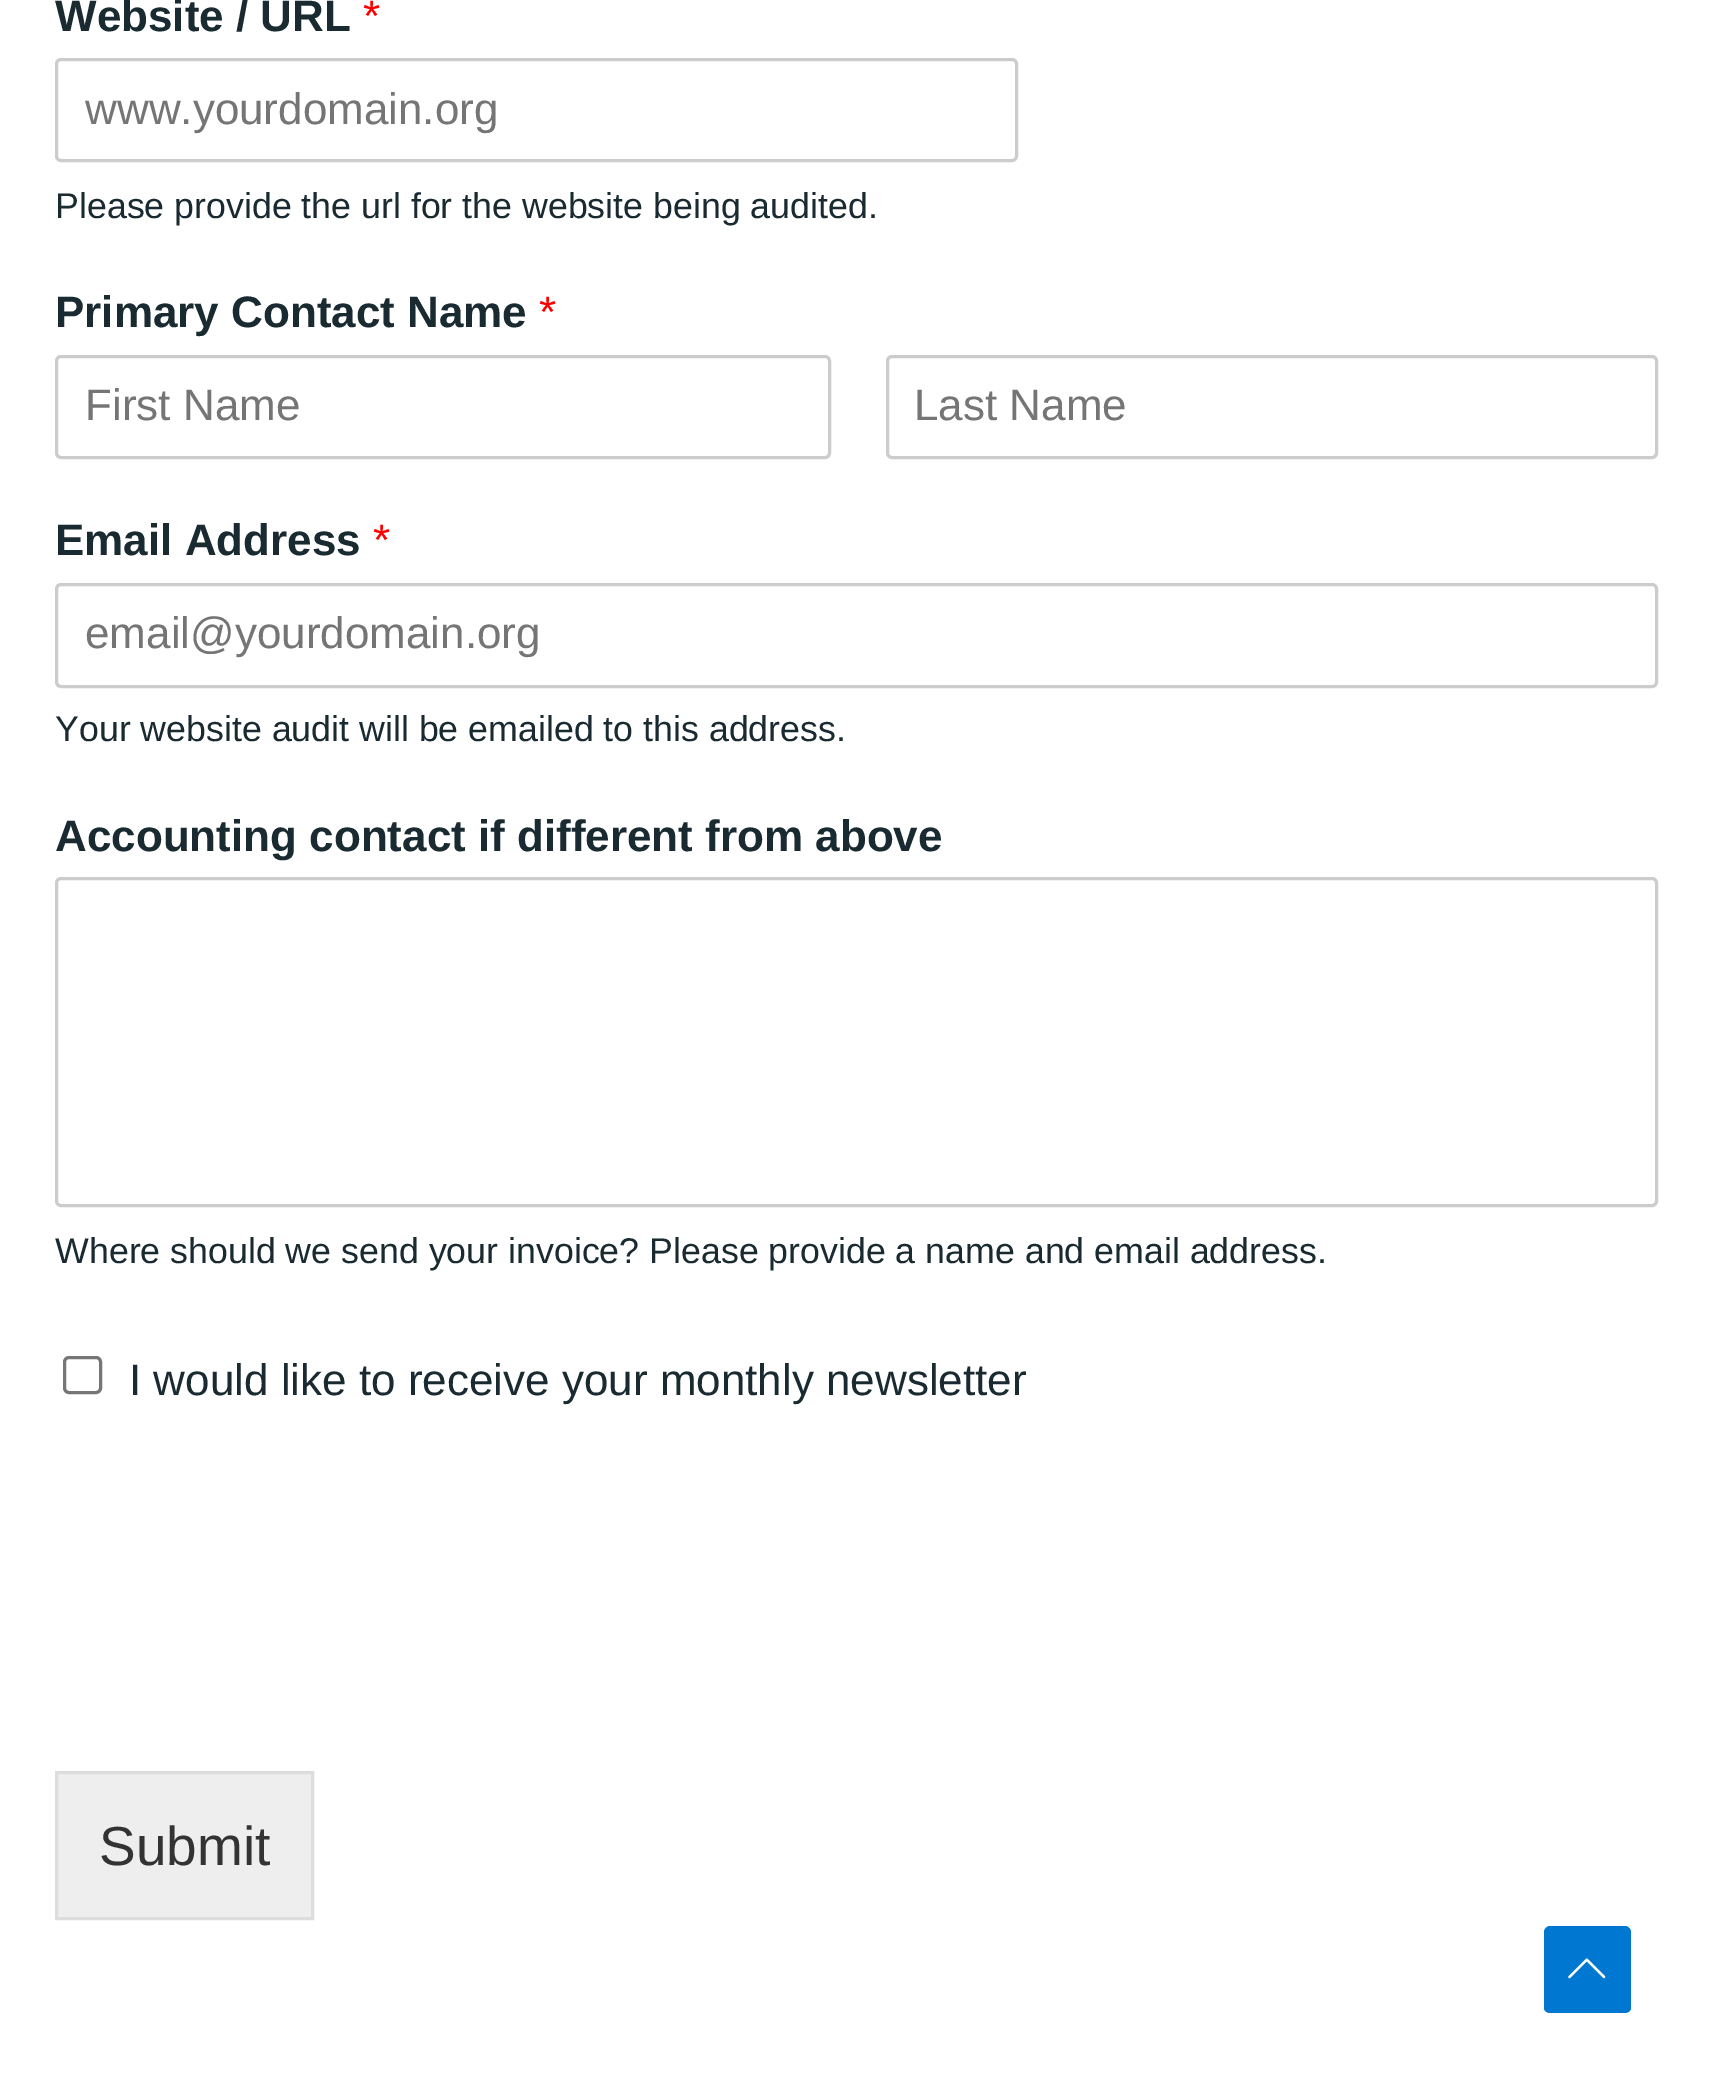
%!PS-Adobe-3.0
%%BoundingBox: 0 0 1712 2094
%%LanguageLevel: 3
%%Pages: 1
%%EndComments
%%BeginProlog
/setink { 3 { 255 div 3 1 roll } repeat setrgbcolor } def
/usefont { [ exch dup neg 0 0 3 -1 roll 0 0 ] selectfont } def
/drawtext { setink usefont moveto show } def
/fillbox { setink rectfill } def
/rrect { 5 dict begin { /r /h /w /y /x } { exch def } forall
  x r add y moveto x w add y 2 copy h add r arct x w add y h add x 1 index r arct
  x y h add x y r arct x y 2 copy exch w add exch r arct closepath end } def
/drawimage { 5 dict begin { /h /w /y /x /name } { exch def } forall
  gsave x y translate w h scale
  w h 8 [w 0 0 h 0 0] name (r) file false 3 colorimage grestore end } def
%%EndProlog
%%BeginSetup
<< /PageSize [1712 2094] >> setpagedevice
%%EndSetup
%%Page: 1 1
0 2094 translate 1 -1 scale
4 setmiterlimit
0 0 1712 2094 255 255 255 fillbox
(Website / URL) 55 31 /LiberationSans-Bold 44 26 42 49 drawtext
(*) 363 31 /LiberationSans-Regular 44 255 0 0 drawtext
204 204 204 setink
3 setlinewidth
56.5 59.5 960 101 4.5 rrect stroke
(www.yourdomain.org) 85 124 /LiberationSans-Regular 44 117 117 117 drawtext
(Please provide the url for the website being audited.) 55 218 /LiberationSans-Regular 35.75 26 42 49 drawtext
(Primary Contact Name) 55 327 /LiberationSans-Bold 44 26 42 49 drawtext
(*) 539 327 /LiberationSans-Regular 44 255 0 0 drawtext
204 204 204 setink
56.5 356.5 773 101 4.5 rrect stroke
(First Name) 85 420 /LiberationSans-Regular 44 117 117 117 drawtext
204 204 204 setink
887.5 356.5 769 101 4.5 rrect stroke
(Last Name) 914 420 /LiberationSans-Regular 44 117 117 117 drawtext
(Email Address) 55 555 /LiberationSans-Bold 44 26 42 49 drawtext
(*) 373 555 /LiberationSans-Regular 44 255 0 0 drawtext
204 204 204 setink
56.5 584.5 1600 102 4.5 rrect stroke
(email@yourdomain.org) 85 648 /LiberationSans-Regular 44 117 117 117 drawtext
(Your website audit will be emailed to this address.) 55 741 /LiberationSans-Regular 35.75 26 42 49 drawtext
(Accounting contact if different from above) 55 851 /LiberationSans-Bold 44 26 42 49 drawtext
204 204 204 setink
56.5 878.5 1600 327 4.5 rrect stroke
(Where should we send your invoice? Please provide a name and email address.) 55 1263 /LiberationSans-Regular 35.75 26 42 49 drawtext
118 118 118 setink
64.5 1357.5 36 35 4.5 rrect stroke
(I would like to receive your monthly newsletter) 129 1395 /LiberationSans-Regular 44 26 42 49 drawtext
238 238 238 setink
56.5 1772.5 moveto 312.5 1772.5 lineto 312.5 1918.5 lineto 56.5 1918.5 lineto closepath gsave fill grestore
221 221 221 setink
stroke
(Submit) 99 1865 /LiberationSans-Regular 55 51 51 51 drawtext
0 120 209 setink
1625 2013 moveto 1550 2013 lineto 1547 2013 1544 2011 1544 2008 curveto 1544 1932 lineto 1544 1929 1547 1926 1550 1926 curveto 1625 1926 lineto 1628 1926 1631 1929 1631 1932 curveto 1631 2008 lineto 1631 2011 1628 2013 1625 2013 curveto closepath fill
(assets/img1.rgb) 1568 1958 38 21 drawimage
showpage
%%EOF
